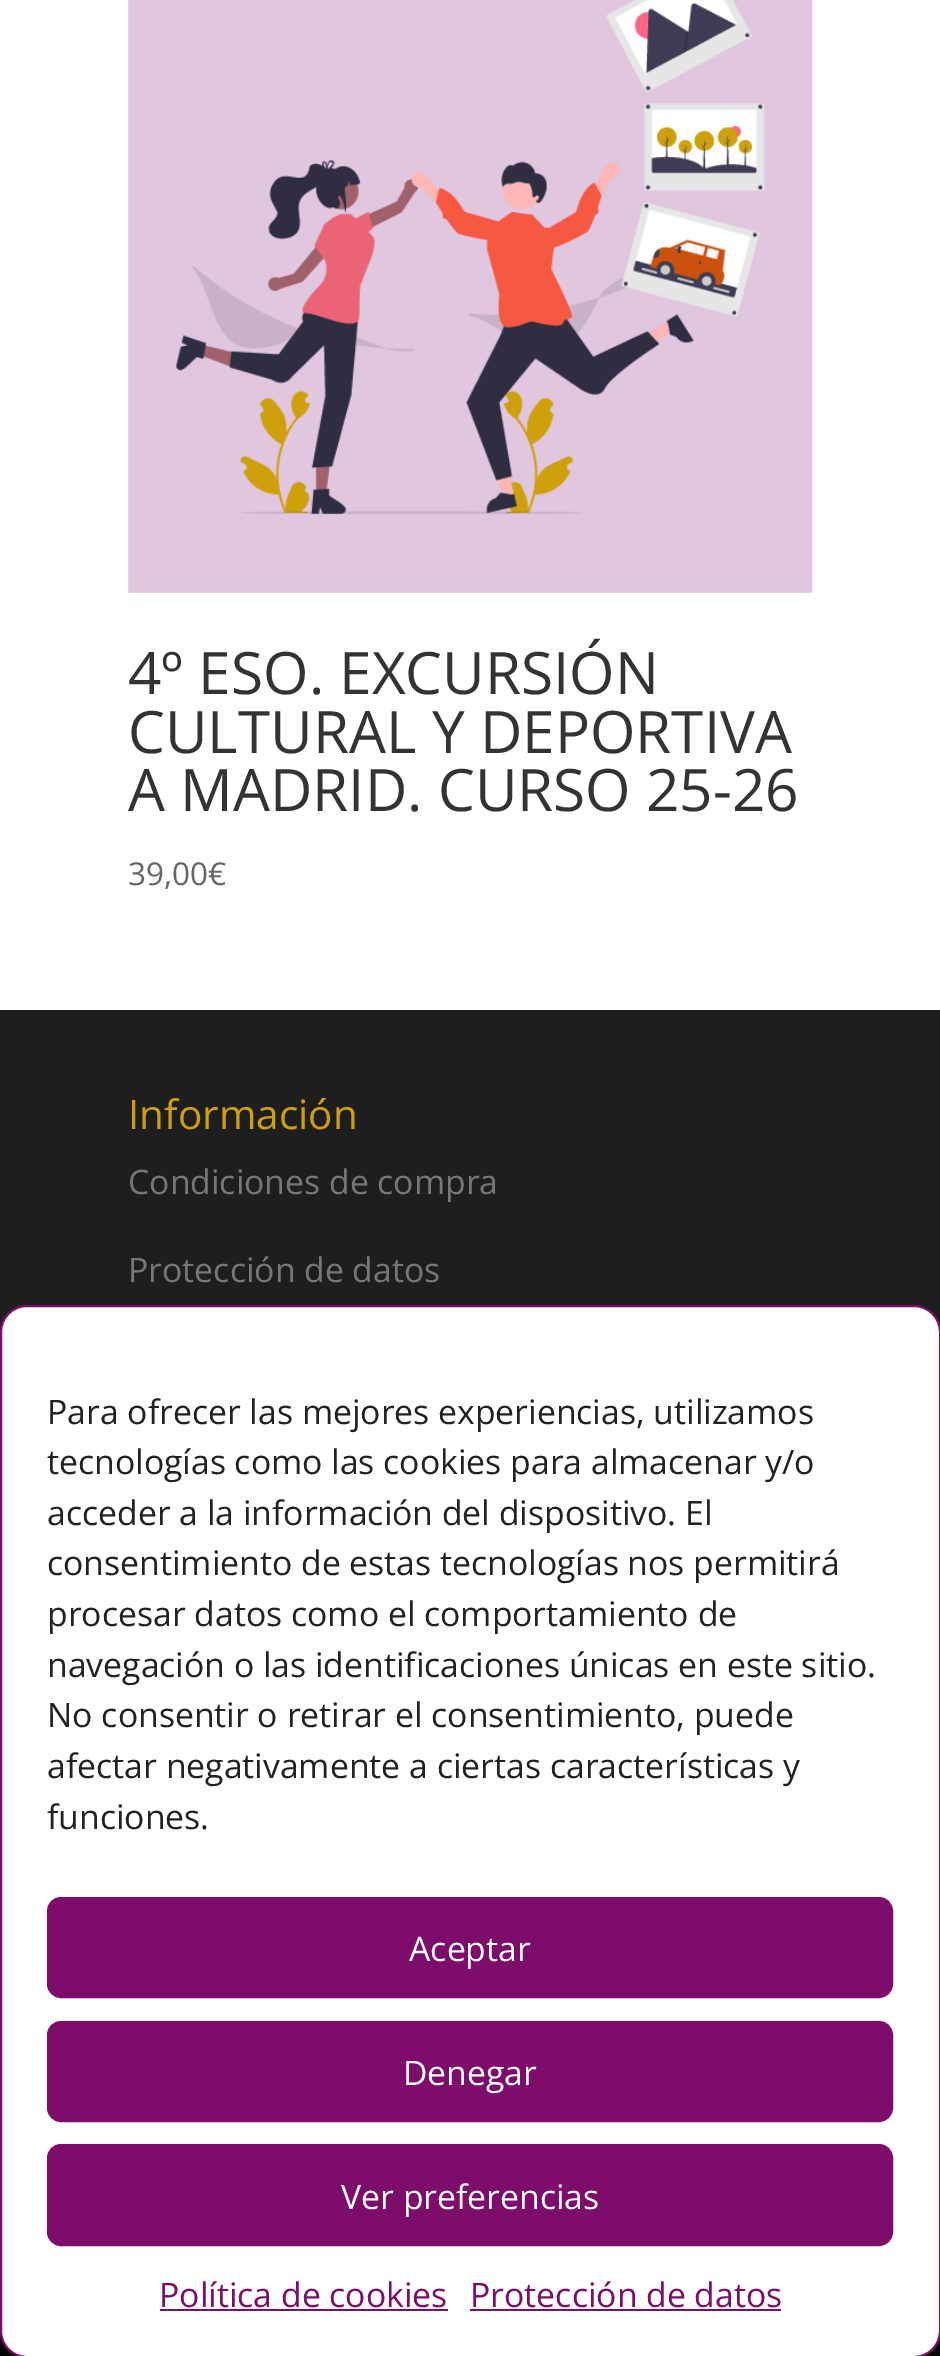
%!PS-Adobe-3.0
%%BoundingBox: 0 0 940 2356
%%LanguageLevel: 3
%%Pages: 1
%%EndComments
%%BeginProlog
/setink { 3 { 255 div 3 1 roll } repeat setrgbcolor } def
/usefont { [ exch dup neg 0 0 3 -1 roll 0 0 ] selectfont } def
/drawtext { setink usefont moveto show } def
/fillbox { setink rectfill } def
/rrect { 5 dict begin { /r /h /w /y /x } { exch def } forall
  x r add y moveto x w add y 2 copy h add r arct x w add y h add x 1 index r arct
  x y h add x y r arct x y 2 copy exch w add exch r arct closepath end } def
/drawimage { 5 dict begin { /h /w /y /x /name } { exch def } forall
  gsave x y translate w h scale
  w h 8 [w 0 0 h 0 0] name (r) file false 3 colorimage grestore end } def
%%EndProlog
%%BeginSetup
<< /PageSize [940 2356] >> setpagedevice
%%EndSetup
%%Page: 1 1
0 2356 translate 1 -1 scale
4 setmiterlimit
0 0 940 2356 255 255 255 fillbox
(assets/img1.rgb) 128 0 685 593 drawimage
(4º ESO. EXCURSIÓN) 128 694 /OpenSans-Regular 58.5 51 51 51 drawtext
(CULTURAL Y DEPORTIVA) 128 753 /OpenSans-Regular 58.5 51 51 51 drawtext
(A MADRID. CURSO 25-26) 128 811 /OpenSans-Regular 58.5 51 51 51 drawtext
(39,00€) 128 885 /OpenSans-Regular 31.5 102 102 102 drawtext
0 1010 940 322 30 30 30 fillbox
(Información) 128 1129 /OpenSans-Regular 40.5 206 160 11 drawtext
(Condiciones de compra) 128 1194 /OpenSans-Regular 33.75 119 119 119 drawtext
(Protección de datos) 128 1282 /OpenSans-Regular 33.75 119 119 119 drawtext
0 2331 940 25 5 5 5 fillbox
255 255 255 setink
1 1306 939 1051 26 rrect gsave fill grestore
126 12 107 setink
2 setlinewidth
stroke
(Para ofrecer las mejores experiencias, utilizamos) 47 1424 /OpenSans-Regular 33.75 34 34 34 drawtext
(tecnologías como las cookies para almacenar y/o) 47 1474 /OpenSans-Regular 33.75 34 34 34 drawtext
(acceder a la información del dispositivo. El) 47 1525 /OpenSans-Regular 33.75 34 34 34 drawtext
(consentimiento de estas tecnologías nos permitirá) 47 1575 /OpenSans-Regular 33.75 34 34 34 drawtext
(procesar datos como el comportamiento de) 47 1626 /OpenSans-Regular 33.75 34 34 34 drawtext
(navegación o las identificaciones únicas en este sitio.) 47 1677 /OpenSans-Regular 33.75 34 34 34 drawtext
(No consentir o retirar el consentimiento, puede) 47 1727 /OpenSans-Regular 33.75 34 34 34 drawtext
(afectar negativamente a ciertas características y) 47 1778 /OpenSans-Regular 33.75 34 34 34 drawtext
(funciones.) 47 1829 /OpenSans-Regular 33.75 34 34 34 drawtext
126 12 107 setink
48 1898 844 99 13 rrect gsave fill grestore
stroke
(Aceptar) 409 1961 /OpenSans-Regular 33.75 255 255 255 drawtext
126 12 107 setink
48 2022 844 99 13 rrect gsave fill grestore
stroke
(Denegar) 403 2085 /OpenSans-Regular 33.75 255 255 255 drawtext
126 12 107 setink
48 2145 844 100 13 rrect gsave fill grestore
stroke
(Ver preferencias) 341 2209 /OpenSans-Regular 33.75 255 255 255 drawtext
(Política de cookies) 159 2307 /OpenSans-Regular 33.75 126 12 107 drawtext
160 2309 288 2 126 12 107 fillbox
(Protección de datos) 470 2307 /OpenSans-Regular 33.75 126 12 107 drawtext
470 2309 311 2 126 12 107 fillbox
showpage
%%EOF
